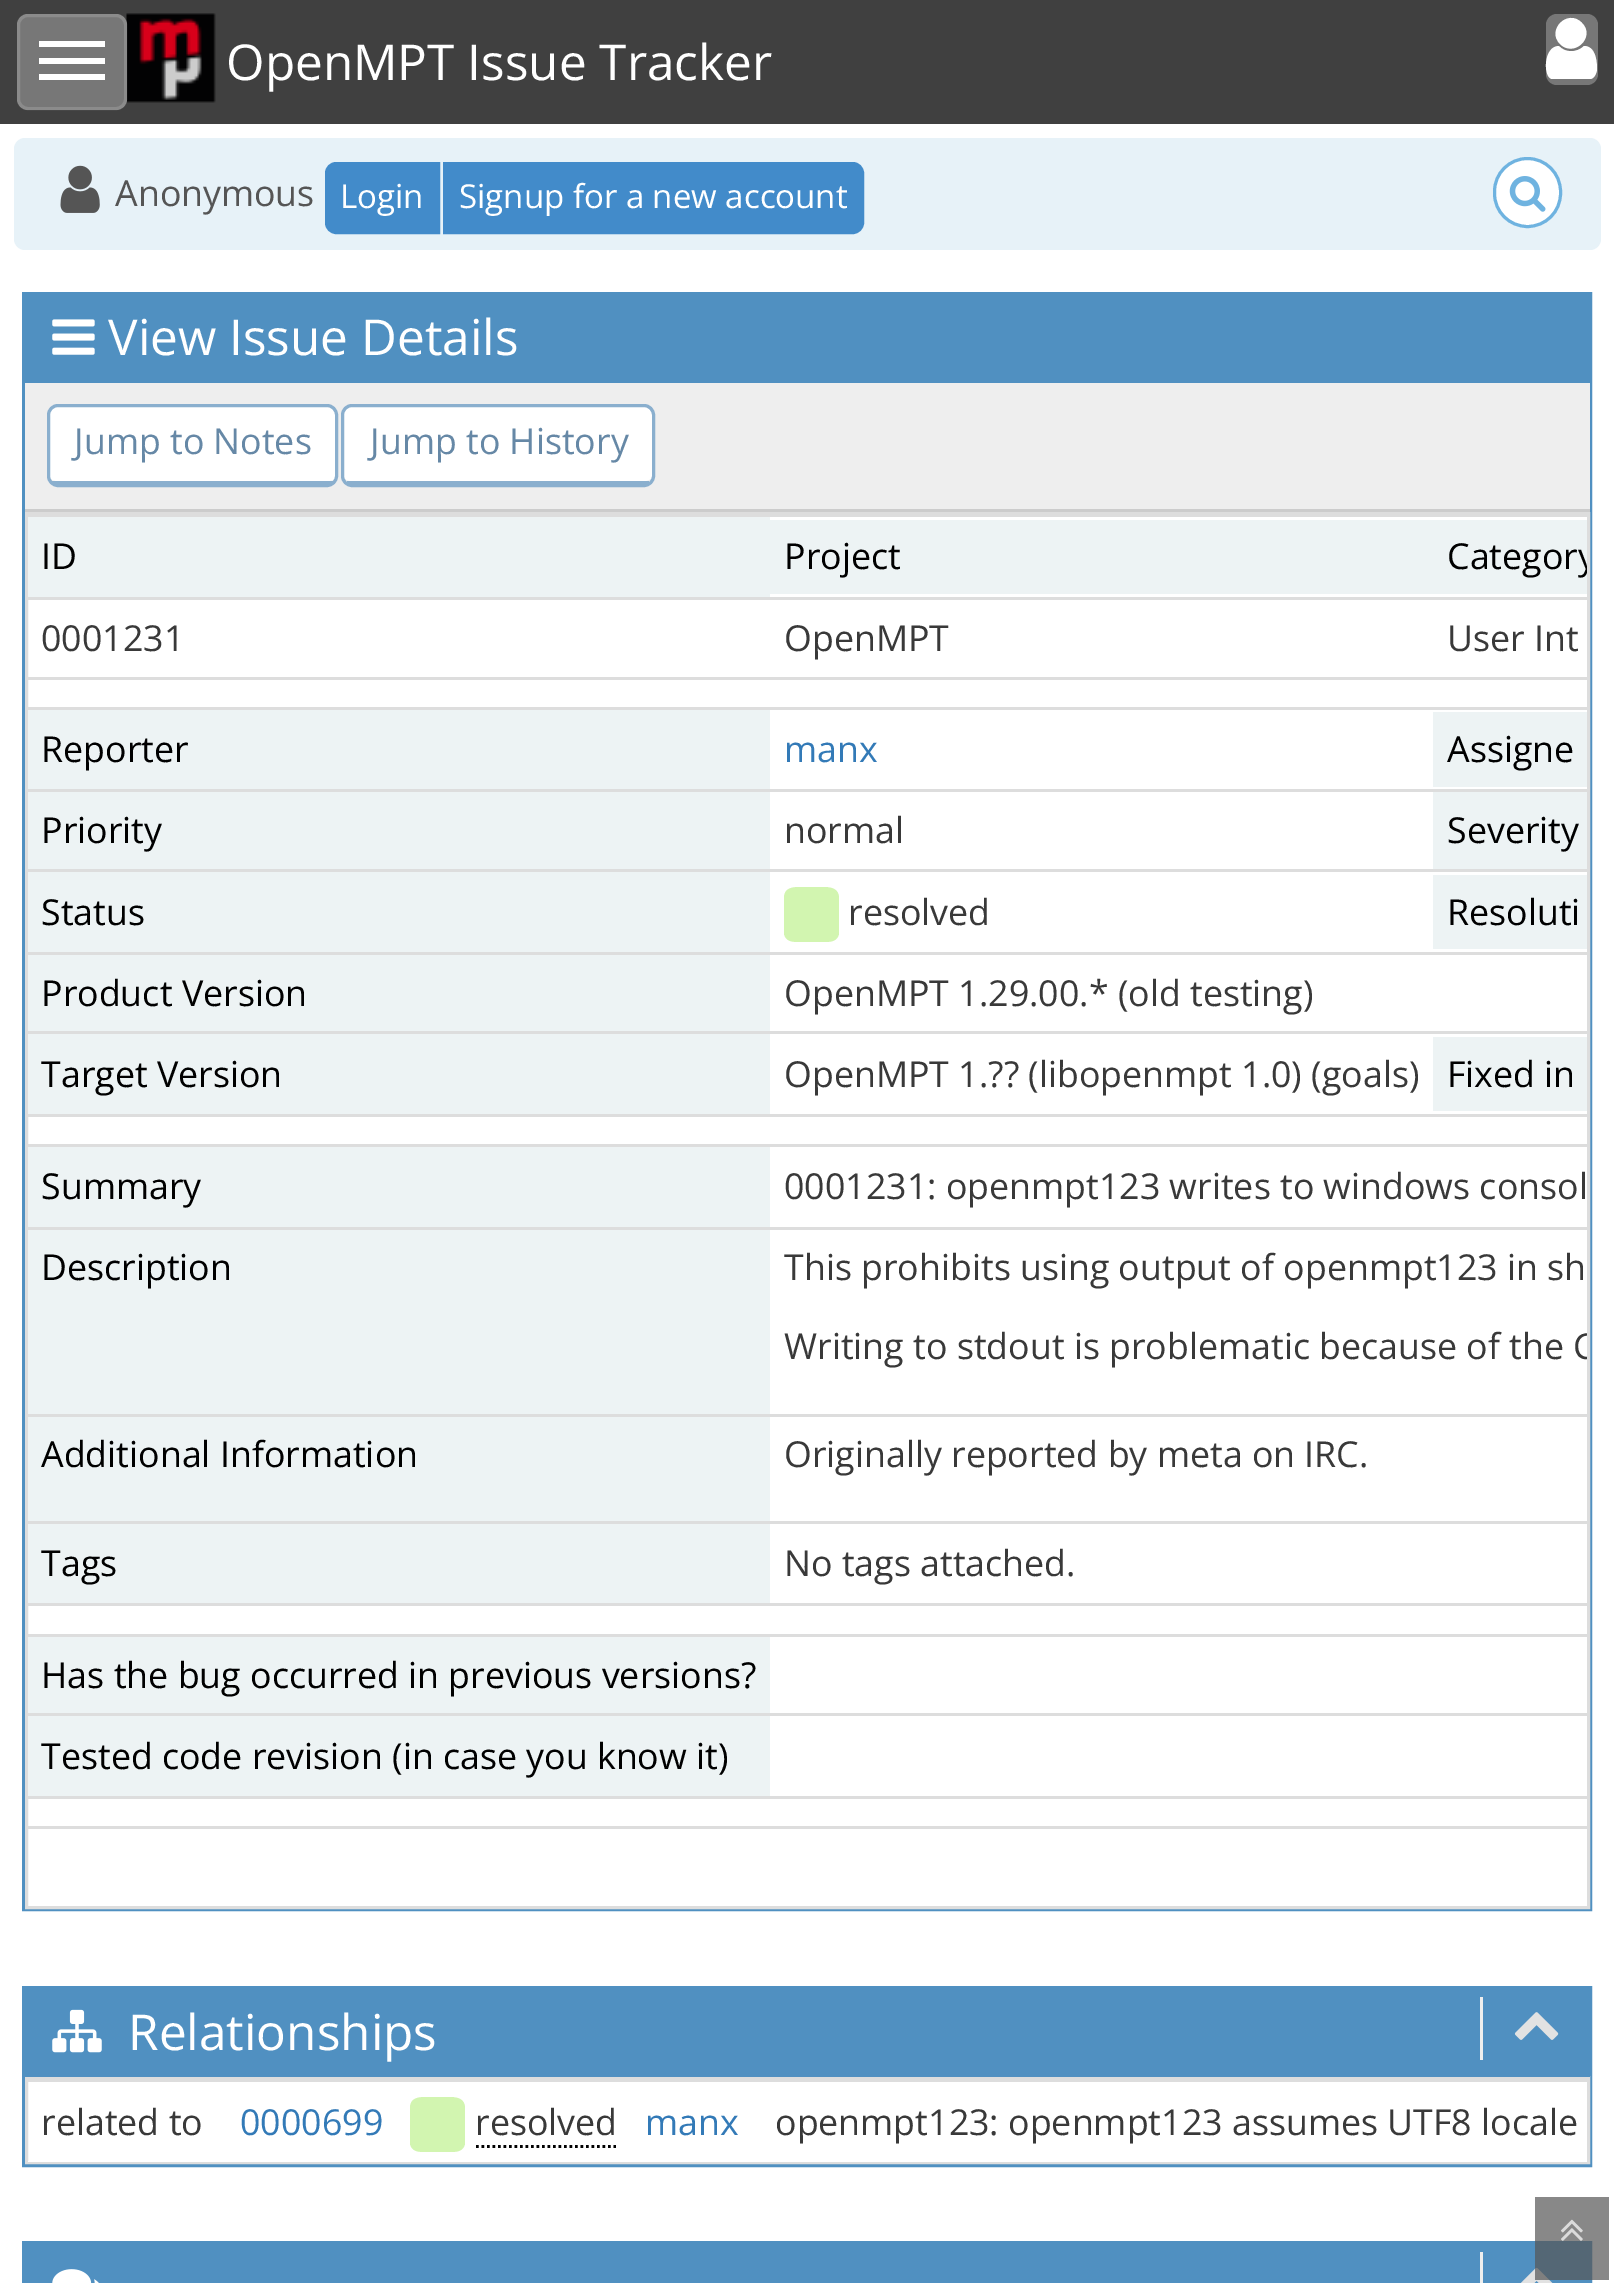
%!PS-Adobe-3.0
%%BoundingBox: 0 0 1614 2283
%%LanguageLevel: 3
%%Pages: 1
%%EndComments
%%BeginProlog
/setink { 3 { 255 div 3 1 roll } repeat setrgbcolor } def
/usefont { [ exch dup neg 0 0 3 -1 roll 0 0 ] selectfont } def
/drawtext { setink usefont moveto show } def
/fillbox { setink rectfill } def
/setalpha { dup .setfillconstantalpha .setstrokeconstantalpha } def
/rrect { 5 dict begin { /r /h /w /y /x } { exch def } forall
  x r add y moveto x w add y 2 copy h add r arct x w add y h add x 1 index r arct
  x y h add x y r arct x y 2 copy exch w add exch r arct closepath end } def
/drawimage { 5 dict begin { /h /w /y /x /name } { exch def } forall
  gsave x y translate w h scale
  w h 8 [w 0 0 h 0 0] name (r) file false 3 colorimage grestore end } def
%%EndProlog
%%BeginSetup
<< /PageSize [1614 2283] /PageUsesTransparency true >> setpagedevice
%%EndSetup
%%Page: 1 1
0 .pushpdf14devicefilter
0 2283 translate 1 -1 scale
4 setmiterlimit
0 0 1614 2283 255 255 255 fillbox
0 0 1614 124 64 64 64 fillbox
(assets/img1.rgb) 126 13 90 90 drawimage
119 119 119 setink
17 14 110 96 11 rrect fill
0.15 setalpha
255 255 255 setink
3 setlinewidth
18.5 15.5 107 93 9.5 rrect stroke
1 setalpha
39 41 66 6 255 255 255 fillbox
39 58 66 6 255 255 255 fillbox
39 74 66 6 255 255 255 fillbox
(OpenMPT Issue Tracker) 226 80 /OpenSans-Regular 49.5 255 255 255 drawtext
119 119 119 setink
1546 14 52 71 11 rrect fill
255 255 255 setink
1597 69 moveto 1597 73 1594 79 1590 79 curveto 1552 79 lineto 1543 78 1543 46 1559 46 curveto 1565 53 1577 53 1584 46 curveto 1595 46 1597 60 1597 69 curveto closepath 1582 23 moveto 1568 8 1546 30 1560 44 curveto 1574 58 1596 37 1582 23 curveto closepath eofill
231 242 248 setink
14 138 1587 112 11 rrect fill
(assets/img2.rgb) 60 165 40 48 drawimage
(Anonymous) 115 206 /OpenSans-Regular 35.75 85 85 85 drawtext
66 139 202 setink
336 163.5 moveto 438.5 163.5 lineto 438.5 232.5 lineto 336 232.5 lineto 331 232.5 326.5 228 326.5 223 curveto 326.5 173 lineto 326.5 168 331 163.5 336 163.5 curveto closepath gsave fill grestore
stroke
(Login) 340 208 /OpenSans-Regular 33 255 255 255 drawtext
66 139 202 setink
444.5 163.5 moveto 853 163.5 lineto 858 163.5 862.5 168 862.5 173 curveto 862.5 223 lineto 862.5 228 858 232.5 853 232.5 curveto 444.5 232.5 lineto closepath gsave fill grestore
stroke
(Signup for a new account) 459 208 /OpenSans-Regular 33 255 255 255 drawtext
1494.5 158.5 66 68 33 rrect gsave fill grestore
111 179 224 setink
stroke
(assets/img3.rgb) 1509 176 37 36 drawimage
80 144 193 setink
23.5 293.5 1567 1616 rectstroke
25 295 1564 85 80 144 193 fillbox
25 380 1565 3 80 144 193 fillbox
(assets/img4.rgb) 52 319 43 36 drawimage
(View Issue Details) 108 355 /OpenSans-Regular 49.5 255 255 255 drawtext
25 383 1565 126 238 238 238 fillbox
25 509 1565 3 204 204 204 fillbox
255 255 255 setink
58 407 moveto 327 407 lineto 332 407 336 411 336 415 curveto 336 476 lineto 336 479 332 481 327 481 curveto 58 481 lineto 53 481 50 479 50 476 curveto 50 415 lineto 50 411 53 407 58 407 curveto closepath fill
138 175 206 setink
48.5 405.5 288 80 9.5 rrect stroke
52 481 281 3 138 175 206 fillbox
(Jump to Notes) 74 454 /OpenSans-Regular 35.75 102 136 166 drawtext
255 255 255 setink
352 407 moveto 644 407 lineto 648 407 652 411 652 415 curveto 652 476 lineto 652 479 648 481 644 481 curveto 352 481 lineto 347 481 344 479 344 476 curveto 344 415 lineto 344 411 347 407 352 407 curveto closepath fill
138 175 206 setink
342.5 405.5 311 80 9.5 rrect stroke
347 481 302 3 138 175 206 fillbox
(Jump to History) 370 454 /OpenSans-Regular 35.75 102 136 166 drawtext
221 221 221 setink
26.5 513.5 1562 1394 rectstroke
28 517 742 80 237 243 244 fillbox
(ID) 41 569 /OpenSans-Regular 35.75 0 0 0 drawtext
770 520 817 74 237 243 244 fillbox
(Project) 784 569 /OpenSans-Regular 35.75 0 0 0 drawtext
28 515 1559 2 221 221 221 fillbox
gsave
28 514 1559 1392 rectclip
(Category) 1447 569 /OpenSans-Regular 35.75 0 0 0 drawtext
grestore
(0001231) 41 651 /OpenSans-Regular 35.75 57 57 57 drawtext
(OpenMPT) 784 651 /OpenSans-Regular 35.75 57 57 57 drawtext
28 597 1559 3 221 221 221 fillbox
(User Int) 1447 651 /OpenSans-Regular 35.75 57 57 57 drawtext
28 677 1559 3 221 221 221 fillbox
28 710 742 79 237 243 244 fillbox
(Reporter) 41 762 /OpenSans-Regular 35.75 0 0 0 drawtext
(manx) 784 762 /OpenSans-Regular 35.75 51 122 183 drawtext
1433 712 154 75 237 243 244 fillbox
28 707 1559 3 221 221 221 fillbox
(Assigne) 1447 762 /OpenSans-Regular 35.75 0 0 0 drawtext
28 792 742 77 237 243 244 fillbox
(Priority) 41 843 /OpenSans-Regular 35.75 0 0 0 drawtext
(normal) 784 843 /OpenSans-Regular 35.75 57 57 57 drawtext
1433 792 154 77 237 243 244 fillbox
28 789 1559 3 221 221 221 fillbox
(Severity) 1447 843 /OpenSans-Regular 35.75 0 0 0 drawtext
28 872 742 80 237 243 244 fillbox
(Status) 41 925 /OpenSans-Regular 35.75 0 0 0 drawtext
210 245 176 setink
839 898 moveto 839 934 lineto 837 942 830 942 823 942 curveto 800 942 lineto 793 942 786 942 784 934 curveto 784 898 lineto 784 888 792 887 800 887 curveto 823 887 lineto 830 887 839 888 839 898 curveto closepath fill
(resolved) 848 925 /OpenSans-Regular 35.75 57 57 57 drawtext
1433 875 154 74 237 243 244 fillbox
28 869 1559 3 221 221 221 fillbox
(Resoluti) 1447 925 /OpenSans-Regular 35.75 0 0 0 drawtext
28 952 1559 3 221 221 221 fillbox
28 955 742 76 237 243 244 fillbox
(Product Version) 41 1006 /OpenSans-Regular 35.75 0 0 0 drawtext
(OpenMPT 1.29.00.* \(old testing\)) 784 1006 /OpenSans-Regular 35.75 57 57 57 drawtext
28 1034 742 80 237 243 244 fillbox
(Target Version) 41 1087 /OpenSans-Regular 35.75 0 0 0 drawtext
(OpenMPT 1.?? \(libopenmpt 1.0\) \(goals\)) 784 1087 /OpenSans-Regular 35.75 57 57 57 drawtext
1433 1037 154 74 237 243 244 fillbox
28 1031 1559 3 221 221 221 fillbox
(Fixed in) 1447 1087 /OpenSans-Regular 35.75 0 0 0 drawtext
28 1114 1559 3 221 221 221 fillbox
28 1147 742 80 237 243 244 fillbox
(Summary) 41 1199 /OpenSans-Regular 35.75 0 0 0 drawtext
28 1144 1559 3 221 221 221 fillbox
(0001231: openmpt123 writes to windows consol) 784 1199 /OpenSans-Regular 35.75 57 57 57 drawtext
28 1230 742 184 237 243 244 fillbox
(Description) 41 1280 /OpenSans-Regular 35.75 0 0 0 drawtext
28 1227 1559 3 221 221 221 fillbox
(This prohibits using output of openmpt123 in sh) 784 1280 /OpenSans-Regular 35.75 57 57 57 drawtext
gsave
28 514 1559 1392 rectclip
(Writing to stdout is problematic because of the C) 784 1359 /OpenSans-Regular 35.75 57 57 57 drawtext
grestore
28 1417 742 104 237 243 244 fillbox
(Additional Information) 41 1467 /OpenSans-Regular 35.75 0 0 0 drawtext
28 1414 1559 3 221 221 221 fillbox
(Originally reported by meta on IRC.) 784 1467 /OpenSans-Regular 35.75 57 57 57 drawtext
28 1524 742 79 237 243 244 fillbox
(Tags) 41 1576 /OpenSans-Regular 35.75 0 0 0 drawtext
28 1521 1559 3 221 221 221 fillbox
(No tags attached.) 784 1576 /OpenSans-Regular 35.75 57 57 57 drawtext
28 1603 1559 3 221 221 221 fillbox
28 1634 1559 3 221 221 221 fillbox
28 1637 742 76 237 243 244 fillbox
(Has the bug occurred in previous versions?) 41 1688 /OpenSans-Regular 35.75 0 0 0 drawtext
28 1713 1559 3 221 221 221 fillbox
28 1716 742 80 237 243 244 fillbox
(Tested code revision \(in case you know it\)) 41 1769 /OpenSans-Regular 35.75 0 0 0 drawtext
28 1796 1559 3 221 221 221 fillbox
28 1826 1559 3 221 221 221 fillbox
80 144 193 setink
23.5 1987.5 1567 178 rectstroke
25 1989 1564 85 80 144 193 fillbox
221 221 221 setink
26.5 2077.5 1562 85 rectstroke
25 2074 1565 3 80 144 193 fillbox
(assets/img5.rgb) 52 2009 50 44 drawimage
(Relationships) 128 2050 /OpenSans-Regular 49.5 255 255 255 drawtext
1480 1997 3 63 238 238 238 fillbox
(assets/img6.rgb) 1514 2012 45 28 drawimage
28 2161 1559 1 255 255 255 fillbox
(related to) 41 2135 /OpenSans-Regular 35.75 57 57 57 drawtext
(0000699) 240 2135 /OpenSans-Regular 35.75 51 122 183 drawtext
210 245 176 setink
465 2108 moveto 465 2144 lineto 463 2152 456 2152 449 2152 curveto 426 2152 lineto 419 2152 412 2152 410 2144 curveto 410 2108 lineto 410 2098 418 2097 426 2097 curveto 449 2097 lineto 456 2097 465 2098 465 2108 curveto closepath fill
(resolved) 475 2135 /OpenSans-Regular 35.75 57 57 57 drawtext
0 0 0 setink
2.8 setlinewidth
[2.75 2.75] 0 setdash
476 2146.5 moveto 616 2146.5 lineto stroke
(manx) 645 2135 /OpenSans-Regular 35.75 51 122 183 drawtext
28 2079 1559 3 221 221 221 fillbox
(openmpt123: openmpt123 assumes UTF8 locale) 775 2135 /OpenSans-Regular 35.75 57 57 57 drawtext
80 144 193 setink
3 setlinewidth
[] 0 setdash
23.5 2242.5 1567 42 rectstroke
25 2244 1564 39 80 144 193 fillbox
(assets/img7.rgb) 52 2269 47 14 drawimage
1480 2252 3 31 238 238 238 fillbox
(assets/img8.rgb) 1520 2267 33 16 drawimage
0.7 setalpha
1535 2197 74 83 85 85 85 fillbox
1 setalpha
(assets/img9.rgb) 1561 2219 22 22 drawimage
.poppdf14devicefilter showpage
%%EOF
